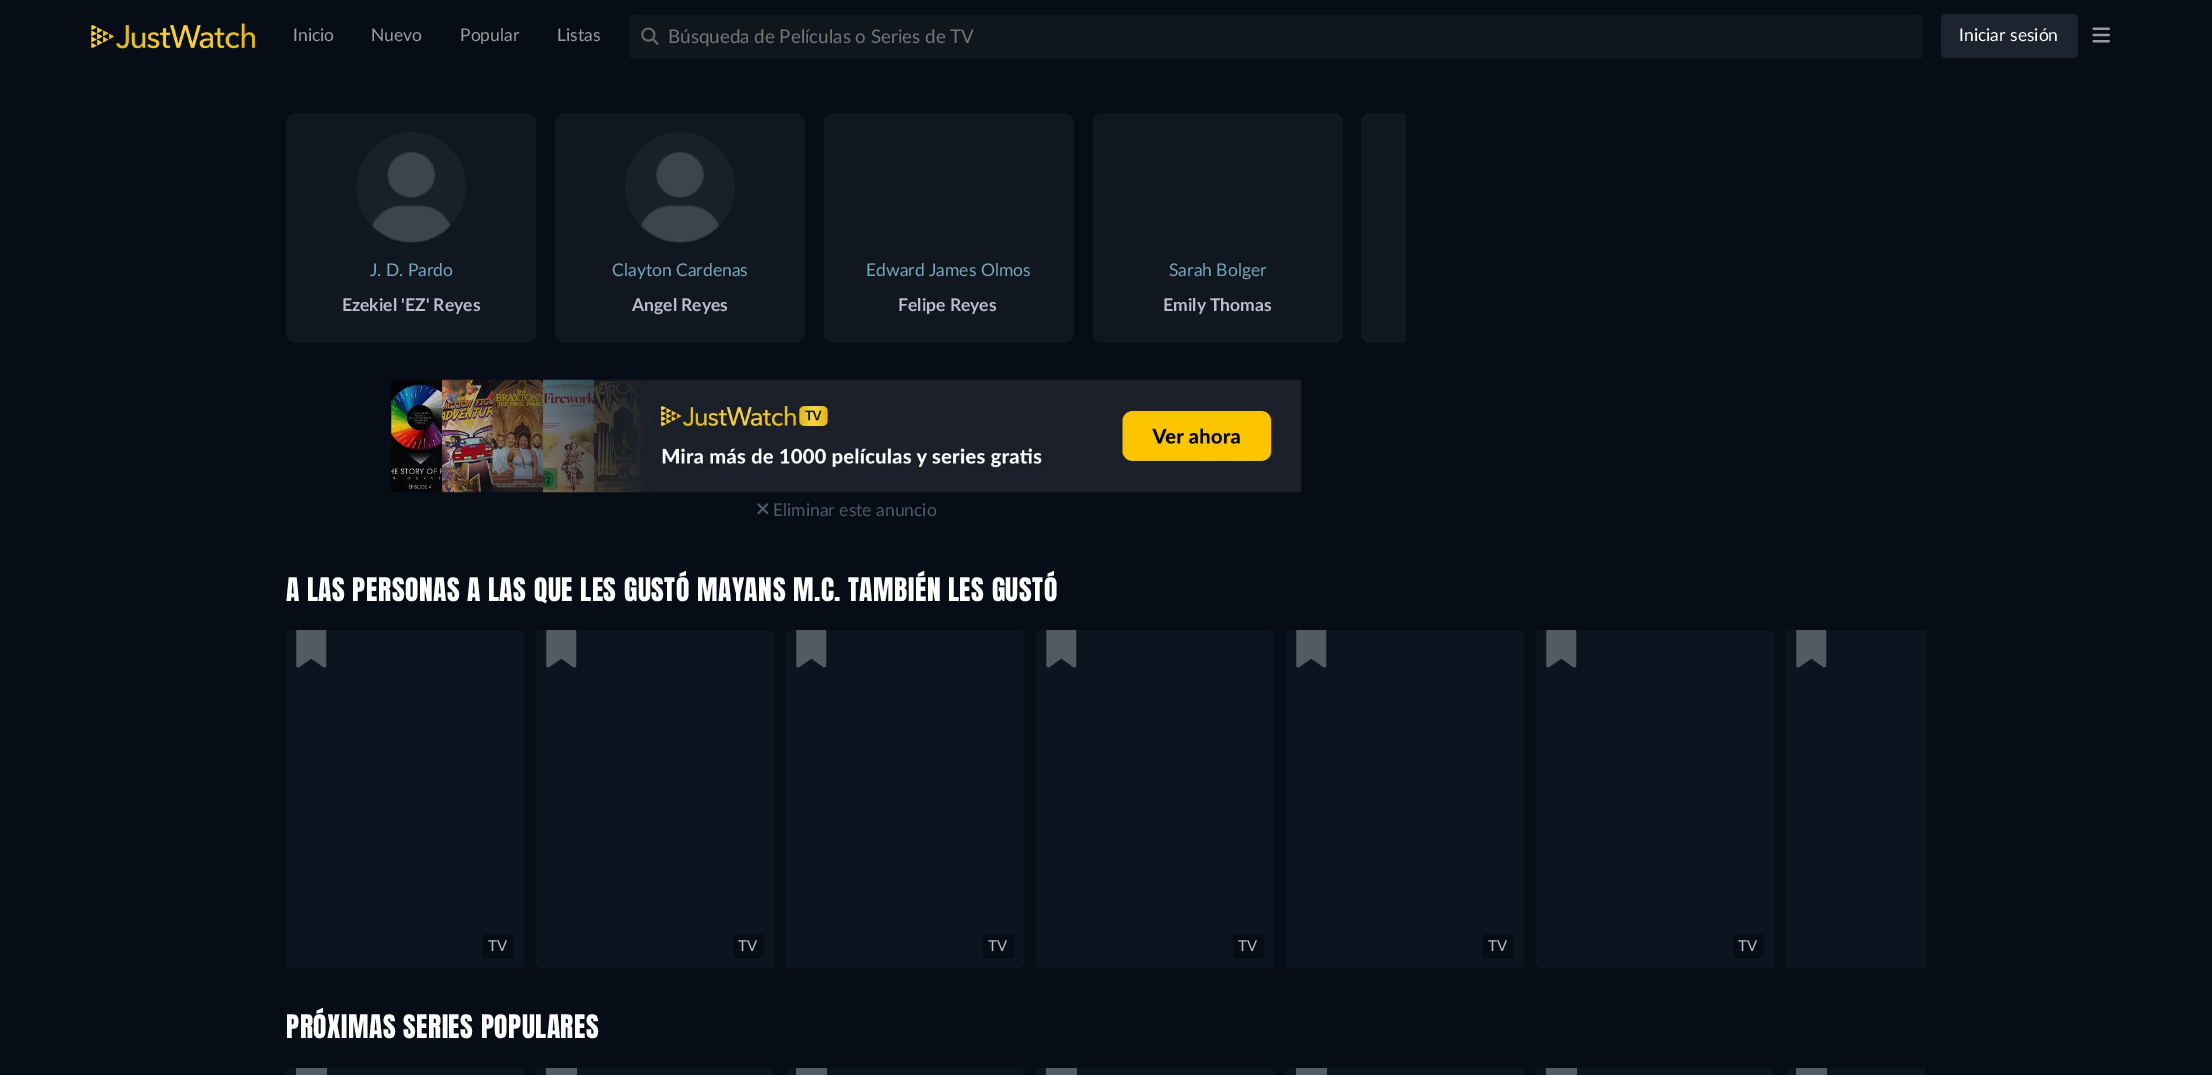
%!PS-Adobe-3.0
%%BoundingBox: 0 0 2212 1075
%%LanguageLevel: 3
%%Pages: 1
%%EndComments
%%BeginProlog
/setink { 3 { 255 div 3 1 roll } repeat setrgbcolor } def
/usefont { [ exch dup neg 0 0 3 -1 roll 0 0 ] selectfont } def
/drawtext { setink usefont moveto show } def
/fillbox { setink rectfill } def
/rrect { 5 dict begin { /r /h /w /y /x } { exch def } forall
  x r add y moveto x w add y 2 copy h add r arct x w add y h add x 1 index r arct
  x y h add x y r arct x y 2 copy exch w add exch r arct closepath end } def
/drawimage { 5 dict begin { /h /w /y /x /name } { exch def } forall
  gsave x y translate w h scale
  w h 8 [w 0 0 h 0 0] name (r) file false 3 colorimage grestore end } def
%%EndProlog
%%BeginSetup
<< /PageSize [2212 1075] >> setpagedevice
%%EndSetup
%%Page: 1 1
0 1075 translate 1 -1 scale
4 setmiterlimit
0 0 2212 1075 6 13 23 fillbox
(assets/img1.rgb) 91 23 164 26 drawimage
(Inicio) 293 41 /Lato-Regular 17.5 153 156 159 drawtext
(Nuevo) 371 41 /Lato-Regular 17.5 153 156 159 drawtext
(Popular) 460 41 /Lato-Regular 17.5 153 156 159 drawtext
(Listas) 557 41 /Lato-Regular 17.5 153 156 159 drawtext
16 22 29 setink
629 15 1294 44 5 rrect fill
(assets/img2.rgb) 641 27 18 18 drawimage
(Búsqueda de Películas o Series de TV) 668 43 /Lato-Regular 18.75 117 117 117 drawtext
28 37 47 setink
1941 14 137 44 5 rrect fill
(Iniciar sesión) 1959 41 /Lato-Regular 17.5 255 255 255 drawtext
(assets/img3.rgb) 2092 27 18 16 drawimage
16 23 32 setink
286 113 250 230 10 rrect fill
(assets/img4.rgb) 356 132 110 111 drawimage
(J. D. Pardo) 370 276 /Lato-Regular 17.5 120 166 184 drawtext
(Ezekiel 'EZ' Reyes) 342 311 /Lato-Bold 17.5 185 189 204 drawtext
16 23 32 setink
555 113 250 230 10 rrect fill
(assets/img5.rgb) 625 132 110 111 drawimage
(Clayton Cardenas) 612 276 /Lato-Regular 17.5 120 166 184 drawtext
(Angel Reyes) 632 311 /Lato-Bold 17.5 185 189 204 drawtext
16 23 32 setink
824 113 250 230 10 rrect fill
(Edward James Olmos) 866 276 /Lato-Regular 17.5 120 166 184 drawtext
(Felipe Reyes) 898 311 /Lato-Bold 17.5 185 189 204 drawtext
16 23 32 setink
1093 113 250 230 10 rrect fill
(Sarah Bolger) 1169 276 /Lato-Regular 17.5 120 166 184 drawtext
(Emily Thomas) 1163 311 /Lato-Bold 17.5 185 189 204 drawtext
16 23 32 setink
1371 113 moveto 1406 113 lineto 1406 343 lineto 1371 343 lineto 1365.5 343 1361 338.5 1361 333 curveto 1361 123 lineto 1361 117.5 1365.5 113 1371 113 curveto closepath fill
(assets/img6.rgb) 391 379 911 114 drawimage
(assets/img7.rgb) 757 503 12 12 drawimage
(Eliminar este anuncio) 773 516 /Lato-Regular 17.5 76 90 103 drawtext
/Anton-Regular 27.5 usefont
255 255 255 setink
286 601 moveto 0.55 0 (A LAS PERSONAS A LAS QUE LES GUSTÓ MAYANS M.C. TAMBIÉN LES GUSTÓ) ashow
10 21 31 setink
286 630 238 338 6 rrect fill
(assets/img8.rgb) 296 630 31 38 drawimage
6 13 23 setink
483 934 31 24 2.5 rrect fill
(TV) 488 951 /Lato-Regular 15 185 189 204 drawtext
10 21 31 setink
536 630 238 338 6 rrect fill
(assets/img8.rgb) 546 630 31 38 drawimage
6 13 23 setink
733 934 31 24 2.5 rrect fill
(TV) 738 951 /Lato-Regular 15 185 189 204 drawtext
10 21 31 setink
786 630 238 338 6 rrect fill
(assets/img8.rgb) 796 630 31 38 drawimage
6 13 23 setink
983 934 31 24 2.5 rrect fill
(TV) 988 951 /Lato-Regular 15 185 189 204 drawtext
10 21 31 setink
1036 630 238 338 6 rrect fill
(assets/img8.rgb) 1046 630 31 38 drawimage
6 13 23 setink
1233 934 31 24 2.5 rrect fill
(TV) 1238 951 /Lato-Regular 15 185 189 204 drawtext
10 21 31 setink
1286 630 238 338 6 rrect fill
(assets/img8.rgb) 1296 630 31 38 drawimage
6 13 23 setink
1483 934 31 24 2.5 rrect fill
(TV) 1488 951 /Lato-Regular 15 185 189 204 drawtext
10 21 31 setink
1536 630 238 338 6 rrect fill
(assets/img8.rgb) 1546 630 31 38 drawimage
6 13 23 setink
1733 934 31 24 2.5 rrect fill
(TV) 1738 951 /Lato-Regular 15 185 189 204 drawtext
10 21 31 setink
1792 630 moveto 1926 630 lineto 1926 968 lineto 1792 968 lineto 1788.5 968 1786 965.5 1786 962 curveto 1786 636 lineto 1786 632.5 1788.5 630 1792 630 curveto closepath fill
(assets/img8.rgb) 1796 630 31 38 drawimage
/Anton-Regular 27.5 usefont
255 255 255 setink
286 1038 moveto 0.55 0 (PRÓXIMAS SERIES POPULARES) ashow
10 21 31 setink
286 1068 238 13 6 rrect fill
296 1068 31 7 84 91 98 fillbox
10 21 31 setink
536 1068 238 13 6 rrect fill
546 1068 31 7 84 91 98 fillbox
10 21 31 setink
786 1068 238 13 6 rrect fill
796 1068 31 7 84 91 98 fillbox
10 21 31 setink
1036 1068 238 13 6 rrect fill
1046 1068 31 7 84 91 98 fillbox
10 21 31 setink
1286 1068 238 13 6 rrect fill
1296 1068 31 7 84 91 98 fillbox
10 21 31 setink
1536 1068 238 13 6 rrect fill
1546 1068 31 7 84 91 98 fillbox
10 21 31 setink
1792 1068 moveto 1926 1068 lineto 1926 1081 lineto 1792 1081 lineto 1788.5 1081 1786 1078.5 1786 1075 curveto 1786 1074 lineto 1786 1070.5 1788.5 1068 1792 1068 curveto closepath fill
1796 1068 31 7 84 91 98 fillbox
showpage
%%EOF
